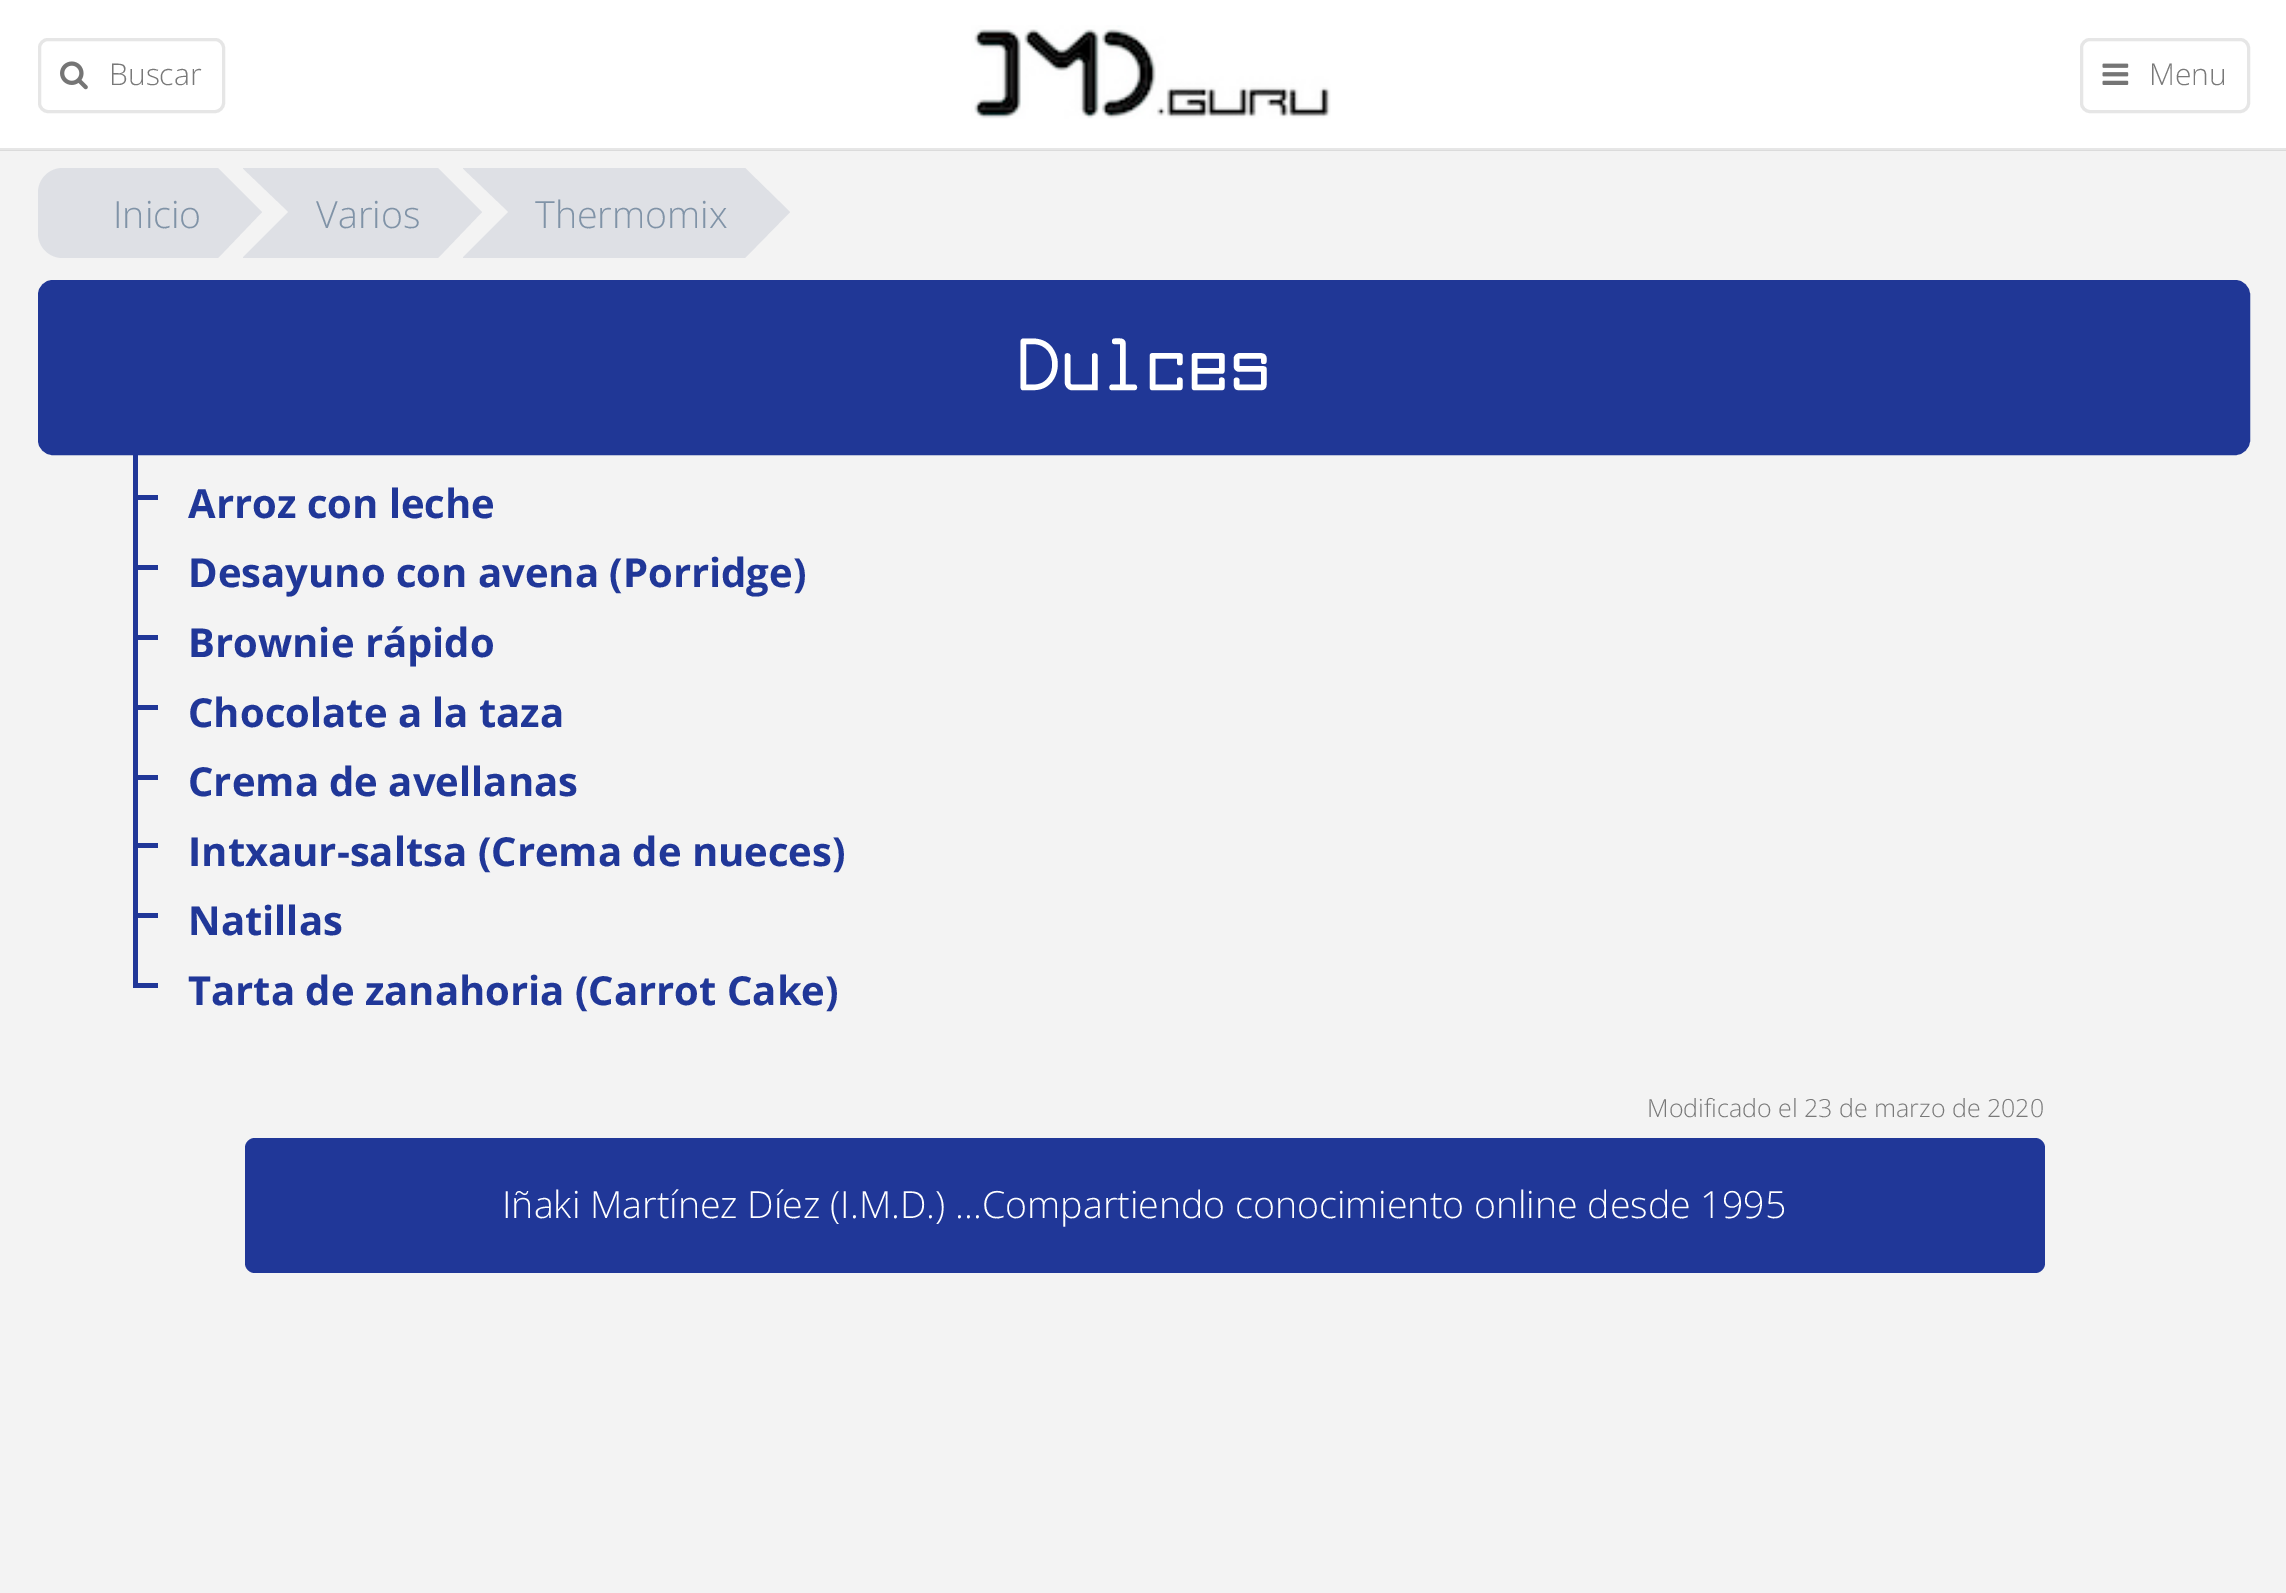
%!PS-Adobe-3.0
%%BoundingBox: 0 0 2286 1593
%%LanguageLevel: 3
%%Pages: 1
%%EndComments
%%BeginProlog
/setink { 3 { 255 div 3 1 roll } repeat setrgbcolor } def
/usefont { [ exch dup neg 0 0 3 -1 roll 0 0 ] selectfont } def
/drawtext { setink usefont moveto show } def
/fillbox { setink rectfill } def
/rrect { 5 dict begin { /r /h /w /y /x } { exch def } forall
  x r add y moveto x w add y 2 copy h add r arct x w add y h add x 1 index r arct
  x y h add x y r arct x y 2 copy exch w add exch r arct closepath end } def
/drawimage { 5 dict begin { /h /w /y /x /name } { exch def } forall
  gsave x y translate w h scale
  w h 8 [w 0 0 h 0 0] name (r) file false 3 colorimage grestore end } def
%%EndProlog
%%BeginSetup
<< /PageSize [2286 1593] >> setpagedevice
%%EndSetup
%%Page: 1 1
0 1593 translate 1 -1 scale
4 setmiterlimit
0 0 2286 1593 243 243 243 fillbox
0 150 2286 1 219 219 219 fillbox
0 0 2286 148 255 255 255 fillbox
0 148 2286 2 230 230 230 fillbox
3 setlinewidth
39.5 39.5 184 72 8.5 rrect stroke
(assets/img1.rgb) 60 61 28 29 drawimage
(Buscar) 109 85 /OpenSans-Light 30 121 121 121 drawtext
(assets/img2.rgb) 971 25 360 94 drawimage
230 230 230 setink
2081.5 39.5 167 72 8.5 rrect stroke
(assets/img3.rgb) 2102 63 27 22 drawimage
(Menu) 2149 85 /OpenSans-Light 30 121 121 121 drawtext
222 224 229 setink
63 168 moveto 218 168 lineto 218 258 lineto 63 258 lineto 49 258 38 247 38 233 curveto 38 193 lineto 38 179 49 168 63 168 curveto closepath fill
(Inicio) 113 228 /OpenSans-Light 37.5 128 147 167 drawtext
243 168 195 90 222 224 229 fillbox
243 243 243 setink
242 258 moveto 242 168 lineto 288 212 lineto closepath fill
222 224 229 setink
218 258 moveto 218 168 lineto 262 212 lineto closepath fill
(Varios) 316 228 /OpenSans-Light 37.5 128 147 167 drawtext
463 168 282 90 222 224 229 fillbox
243 243 243 setink
462 258 moveto 462 168 lineto 508 212 lineto closepath fill
222 224 229 setink
438 258 moveto 438 168 lineto 482 212 lineto closepath fill
(Thermomix) 535 228 /OpenSans-Light 37.5 128 147 167 drawtext
222 224 229 setink
745 258 moveto 745 168 lineto 790 212 lineto closepath fill
32 55 150 setink
40.5 282.5 2207 170 12.5 rrect gsave fill grestore
5 setlinewidth
stroke
(Dulces) 1017 391 /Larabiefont-Bold 80 255 255 255 drawtext
133 455 5 528 32 55 152 fillbox
133 495 25 5 32 55 152 fillbox
(Arroz con leche) 188 518 /OpenSans-Bold 40 32 55 152 drawtext
133 565 25 5 32 55 152 fillbox
(Desayuno con avena \(Porridge\)) 188 587 /OpenSans-Bold 40 32 55 152 drawtext
133 635 25 5 32 55 152 fillbox
(Brownie rápido) 188 657 /OpenSans-Bold 40 32 55 152 drawtext
133 705 25 5 32 55 152 fillbox
(Chocolate a la taza) 188 727 /OpenSans-Bold 40 32 55 152 drawtext
133 775 25 5 32 55 152 fillbox
(Crema de avellanas) 188 796 /OpenSans-Bold 40 32 55 152 drawtext
133 843 25 5 32 55 152 fillbox
(Intxaur-saltsa \(Crema de nueces\)) 188 866 /OpenSans-Bold 40 32 55 152 drawtext
133 913 25 5 32 55 152 fillbox
(Natillas) 188 935 /OpenSans-Bold 40 32 55 152 drawtext
133 983 25 5 32 55 152 fillbox
(Tarta de zanahoria \(Carrot Cake\)) 188 1005 /OpenSans-Bold 40 32 55 152 drawtext
(Modificado el 23 de marzo de 2020) 1647 1117 /OpenSans-Light 25 121 121 121 drawtext
32 55 152 setink
245 1138 1800 135 10 rrect fill
(Iñaki Martínez Díez \(I.M.D.\) ...Compartiendo conocimiento online desde 1995) 502 1218 /OpenSans-Light 37.5 255 255 255 drawtext
showpage
%%EOF
